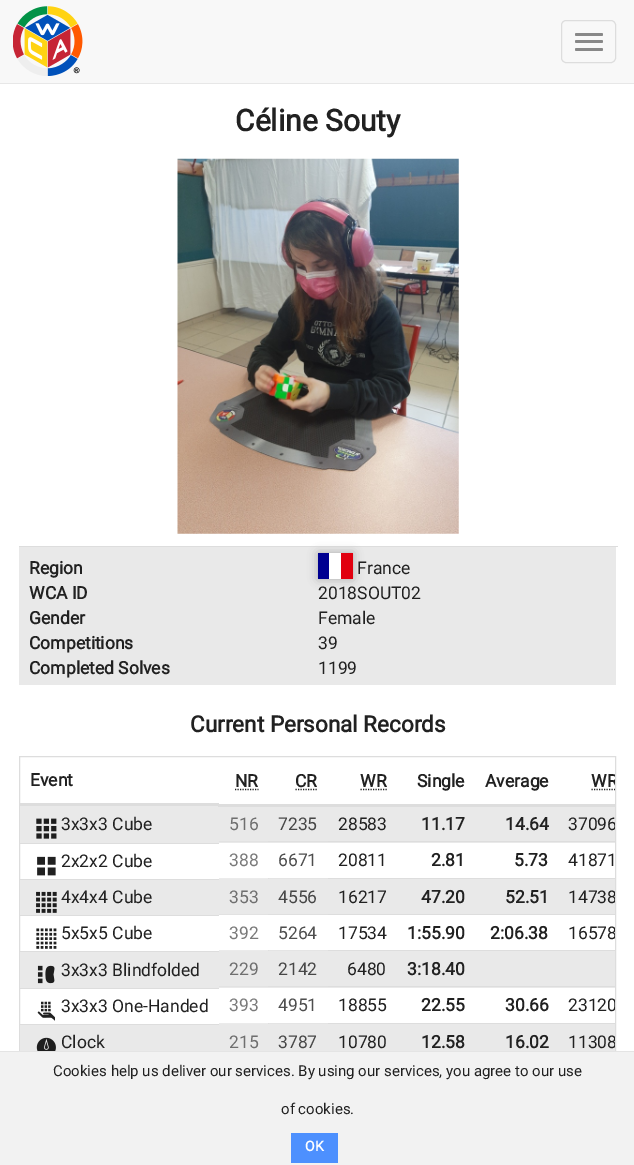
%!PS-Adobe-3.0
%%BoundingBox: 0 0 634 1165
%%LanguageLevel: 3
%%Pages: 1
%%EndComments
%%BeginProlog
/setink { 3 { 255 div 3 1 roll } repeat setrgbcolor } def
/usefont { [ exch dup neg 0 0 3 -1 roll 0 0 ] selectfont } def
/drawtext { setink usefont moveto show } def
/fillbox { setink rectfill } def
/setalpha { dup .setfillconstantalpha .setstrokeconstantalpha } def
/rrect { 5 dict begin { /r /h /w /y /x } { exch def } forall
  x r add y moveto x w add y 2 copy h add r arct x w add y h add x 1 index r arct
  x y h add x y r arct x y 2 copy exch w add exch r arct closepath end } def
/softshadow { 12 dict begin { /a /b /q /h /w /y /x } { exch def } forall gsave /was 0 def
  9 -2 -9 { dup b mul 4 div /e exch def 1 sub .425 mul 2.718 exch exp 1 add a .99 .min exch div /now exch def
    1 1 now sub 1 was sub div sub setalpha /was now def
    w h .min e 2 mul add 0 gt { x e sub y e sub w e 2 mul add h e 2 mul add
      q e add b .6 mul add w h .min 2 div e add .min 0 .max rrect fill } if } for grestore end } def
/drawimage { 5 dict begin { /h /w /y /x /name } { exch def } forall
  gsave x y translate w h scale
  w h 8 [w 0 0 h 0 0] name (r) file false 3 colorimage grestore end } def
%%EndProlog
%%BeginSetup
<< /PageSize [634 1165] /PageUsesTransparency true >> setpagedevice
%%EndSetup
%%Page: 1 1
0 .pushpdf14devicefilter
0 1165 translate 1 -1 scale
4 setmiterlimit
0 0 634 1165 255 255 255 fillbox
219 878 50 1 235 235 235 fillbox
268 878 61 1 228 228 228 fillbox
268 878 1 1 224 224 224 fillbox
219 950 50 1 235 235 235 fillbox
268 950 61 1 228 228 228 fillbox
268 950 1 1 224 224 224 fillbox
219 1023 50 1 235 235 235 fillbox
268 1023 61 1 228 228 228 fillbox
268 1023 1 1 224 224 224 fillbox
0 0 634 83 248 248 248 fillbox
0 83 634 1 231 231 231 fillbox
(assets/img1.rgb) 13 6 70 70 drawimage
221 221 221 setink
561.5 20.5 54 42 4.5 rrect stroke
136 136 136 setink
575 33 28 3 1.5 rrect fill
575 40 28 3 1.5 rrect fill
575 48 28 3 1.5 rrect fill
(Céline Souty) 235 131 /Roboto-Bold 30 33 33 33 drawtext
(assets/img2.rgb) 177 158 282 376 drawimage
19 547 597 138 233 233 233 fillbox
19 546 599 1 221 221 221 fillbox
(Region) 29 574 /Roboto-Bold 17.5 33 33 33 drawtext
34 34 34 setink
318 553 35 26 0 5 0.3 softshadow
329 553 12 26 255 255 255 fillbox
318 553 11 26 0 0 145 fillbox
341 553 12 26 225 0 15 fillbox
(France) 357 574 /Roboto-Regular 17.5 33 33 33 drawtext
(WCA ID) 29 599 /Roboto-Bold 17.5 33 33 33 drawtext
(2018SOUT02) 318 599 /Roboto-Regular 17.5 33 33 33 drawtext
(Gender) 29 624 /Roboto-Bold 17.5 33 33 33 drawtext
(Female) 318 624 /Roboto-Regular 17.5 33 33 33 drawtext
(Competitions) 29 649 /Roboto-Bold 17.5 33 33 33 drawtext
(39) 318 649 /Roboto-Regular 17.5 33 33 33 drawtext
(Completed Solves) 29 674 /Roboto-Bold 17.5 33 33 33 drawtext
(1199) 318 674 /Roboto-Regular 17.5 33 33 33 drawtext
(Current Personal Records) 190 732 /Roboto-Bold 22.5 33 33 33 drawtext
221 221 221 setink
19.5 756.5 596 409 rectstroke
20 803 199 3 221 221 221 fillbox
(Event) 30 786 /Roboto-Bold 17.5 33 33 33 drawtext
(NR) 235 787 /Roboto-Bold 17.5 33 33 33 drawtext
1.2 setlinewidth
[1.25 1.25] 0 setdash
235 789.5 moveto 258.5 789.5 lineto stroke
(CR) 295 787 /Roboto-Bold 17.5 33 33 33 drawtext
295.5 789.5 moveto 317.5 789.5 lineto stroke
(WR) 360 787 /Roboto-Bold 17.5 33 33 33 drawtext
360.5 789.5 moveto 387 789.5 lineto stroke
(Single) 417 787 /Roboto-Bold 17.5 33 33 33 drawtext
(Average) 485 787 /Roboto-Bold 17.5 33 33 33 drawtext
20 806 595 37 233 233 233 fillbox
218 804 397 3 221 221 221 fillbox
gsave
20 758 595 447 rectclip
(WR) 591 787 /Roboto-Bold 17.5 33 33 33 drawtext
591.5 789.5 moveto 617.5 789.5 lineto stroke
grestore
219 841 50 1 226 226 226 fillbox
268 841 61 1 223 223 223 fillbox
(assets/img3.rgb) 36 818 21 21 drawimage
(3x3x3 Cube) 61 830 /Roboto-Regular 17.5 33 33 33 drawtext
(516) 229 830 /Roboto-Regular 17.5 111 111 111 drawtext
(7235) 278 830 /Roboto-Regular 17.5 71 71 71 drawtext
(28583) 338 830 /Roboto-Regular 17.5 33 33 33 drawtext
(11.17) 421 830 /Roboto-Bold 17.5 33 33 33 drawtext
(14.64) 505 830 /Roboto-Bold 17.5 33 33 33 drawtext
gsave
20 758 595 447 rectclip
(37096) 568 830 /Roboto-Regular 17.5 33 33 33 drawtext
grestore
20 843 199 1 221 221 221 fillbox
(assets/img4.rgb) 37 856 19 20 drawimage
(2x2x2 Cube) 61 867 /Roboto-Regular 17.5 33 33 33 drawtext
(388) 229 866 /Roboto-Regular 17.5 122 122 122 drawtext
(6671) 278 866 /Roboto-Regular 17.5 78 78 78 drawtext
(20811) 338 866 /Roboto-Regular 17.5 33 33 33 drawtext
(2.81) 431 866 /Roboto-Bold 17.5 33 33 33 drawtext
(5.73) 514 866 /Roboto-Bold 17.5 33 33 33 drawtext
328 841 287 1 221 221 221 fillbox
(41871) 568 866 /Roboto-Regular 17.5 33 33 33 drawtext
20 879 595 36 233 233 233 fillbox
219 914 50 1 226 226 226 fillbox
268 914 61 1 223 223 223 fillbox
20 879 199 1 221 221 221 fillbox
(assets/img5.rgb) 36 891 21 22 drawimage
(4x4x4 Cube) 61 903 /Roboto-Regular 17.5 33 33 33 drawtext
(353) 229 903 /Roboto-Regular 17.5 111 111 111 drawtext
(4556) 278 903 /Roboto-Regular 17.5 71 71 71 drawtext
(16217) 338 903 /Roboto-Regular 17.5 33 33 33 drawtext
(47.20) 421 903 /Roboto-Bold 17.5 33 33 33 drawtext
(52.51) 505 903 /Roboto-Bold 17.5 33 33 33 drawtext
328 878 287 1 221 221 221 fillbox
gsave
20 758 595 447 rectclip
(14738) 568 903 /Roboto-Regular 17.5 33 33 33 drawtext
grestore
20 915 199 1 221 221 221 fillbox
(assets/img6.rgb) 36 928 21 21 drawimage
(5x5x5 Cube) 61 939 /Roboto-Regular 17.5 33 33 33 drawtext
(392) 229 939 /Roboto-Regular 17.5 122 122 122 drawtext
(5264) 278 939 /Roboto-Regular 17.5 78 78 78 drawtext
(17534) 338 939 /Roboto-Regular 17.5 33 33 33 drawtext
(1:55.90) 407 939 /Roboto-Bold 17.5 33 33 33 drawtext
(2:06.38) 490 939 /Roboto-Bold 17.5 33 33 33 drawtext
328 914 287 1 221 221 221 fillbox
gsave
20 758 595 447 rectclip
(16578) 568 939 /Roboto-Regular 17.5 33 33 33 drawtext
grestore
20 951 595 37 233 233 233 fillbox
219 986 50 1 226 226 226 fillbox
268 986 61 1 223 223 223 fillbox
328 950 287 1 221 221 221 fillbox
20 951 199 1 221 221 221 fillbox
(assets/img7.rgb) 37 965 18 19 drawimage
(3x3x3 Blindfolded) 61 976 /Roboto-Regular 17.5 33 33 33 drawtext
(229) 229 975 /Roboto-Regular 17.5 111 111 111 drawtext
(2142) 278 975 /Roboto-Regular 17.5 71 71 71 drawtext
(6480) 347 975 /Roboto-Regular 17.5 33 33 33 drawtext
(3:18.40) 407 975 /Roboto-Bold 17.5 33 33 33 drawtext
20 988 199 1 221 221 221 fillbox
(assets/img8.rgb) 37 1001 18 20 drawimage
(3x3x3 One-Handed) 61 1012 /Roboto-Regular 17.5 33 33 33 drawtext
(393) 229 1011 /Roboto-Regular 17.5 122 122 122 drawtext
(4951) 278 1011 /Roboto-Regular 17.5 78 78 78 drawtext
(18855) 338 1011 /Roboto-Regular 17.5 33 33 33 drawtext
(22.55) 421 1011 /Roboto-Bold 17.5 33 33 33 drawtext
(30.66) 505 1011 /Roboto-Bold 17.5 33 33 33 drawtext
328 986 287 1 221 221 221 fillbox
gsave
20 758 595 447 rectclip
(23120) 568 1011 /Roboto-Regular 17.5 33 33 33 drawtext
grestore
20 1024 595 27 233 233 233 fillbox
20 1024 199 1 221 221 221 fillbox
(assets/img9.rgb) 36 1037 20 14 drawimage
(Clock) 61 1048 /Roboto-Regular 17.5 33 33 33 drawtext
(215) 229 1048 /Roboto-Regular 17.5 111 111 111 drawtext
(3787) 278 1048 /Roboto-Regular 17.5 71 71 71 drawtext
(10780) 338 1048 /Roboto-Regular 17.5 33 33 33 drawtext
(12.58) 421 1048 /Roboto-Bold 17.5 33 33 33 drawtext
(16.02) 505 1048 /Roboto-Bold 17.5 33 33 33 drawtext
328 1023 287 1 221 221 221 fillbox
gsave
20 758 595 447 rectclip
(11308) 568 1048 /Roboto-Regular 17.5 33 33 33 drawtext
grestore
0 1052 634 113 242 242 242 fillbox
0 1051 634 1 228 228 228 fillbox
(Cookies help us deliver our services. By using our services, you agree to our use) 53 1076 /Roboto-Regular 15 33 33 33 drawtext
(of cookies.) 281 1114 /Roboto-Regular 15 33 33 33 drawtext
291 1133 47 30 77 144 254 fillbox
(OK) 305 1151 /Roboto-Bold 14 255 255 255 drawtext
.poppdf14devicefilter showpage
%%EOF
